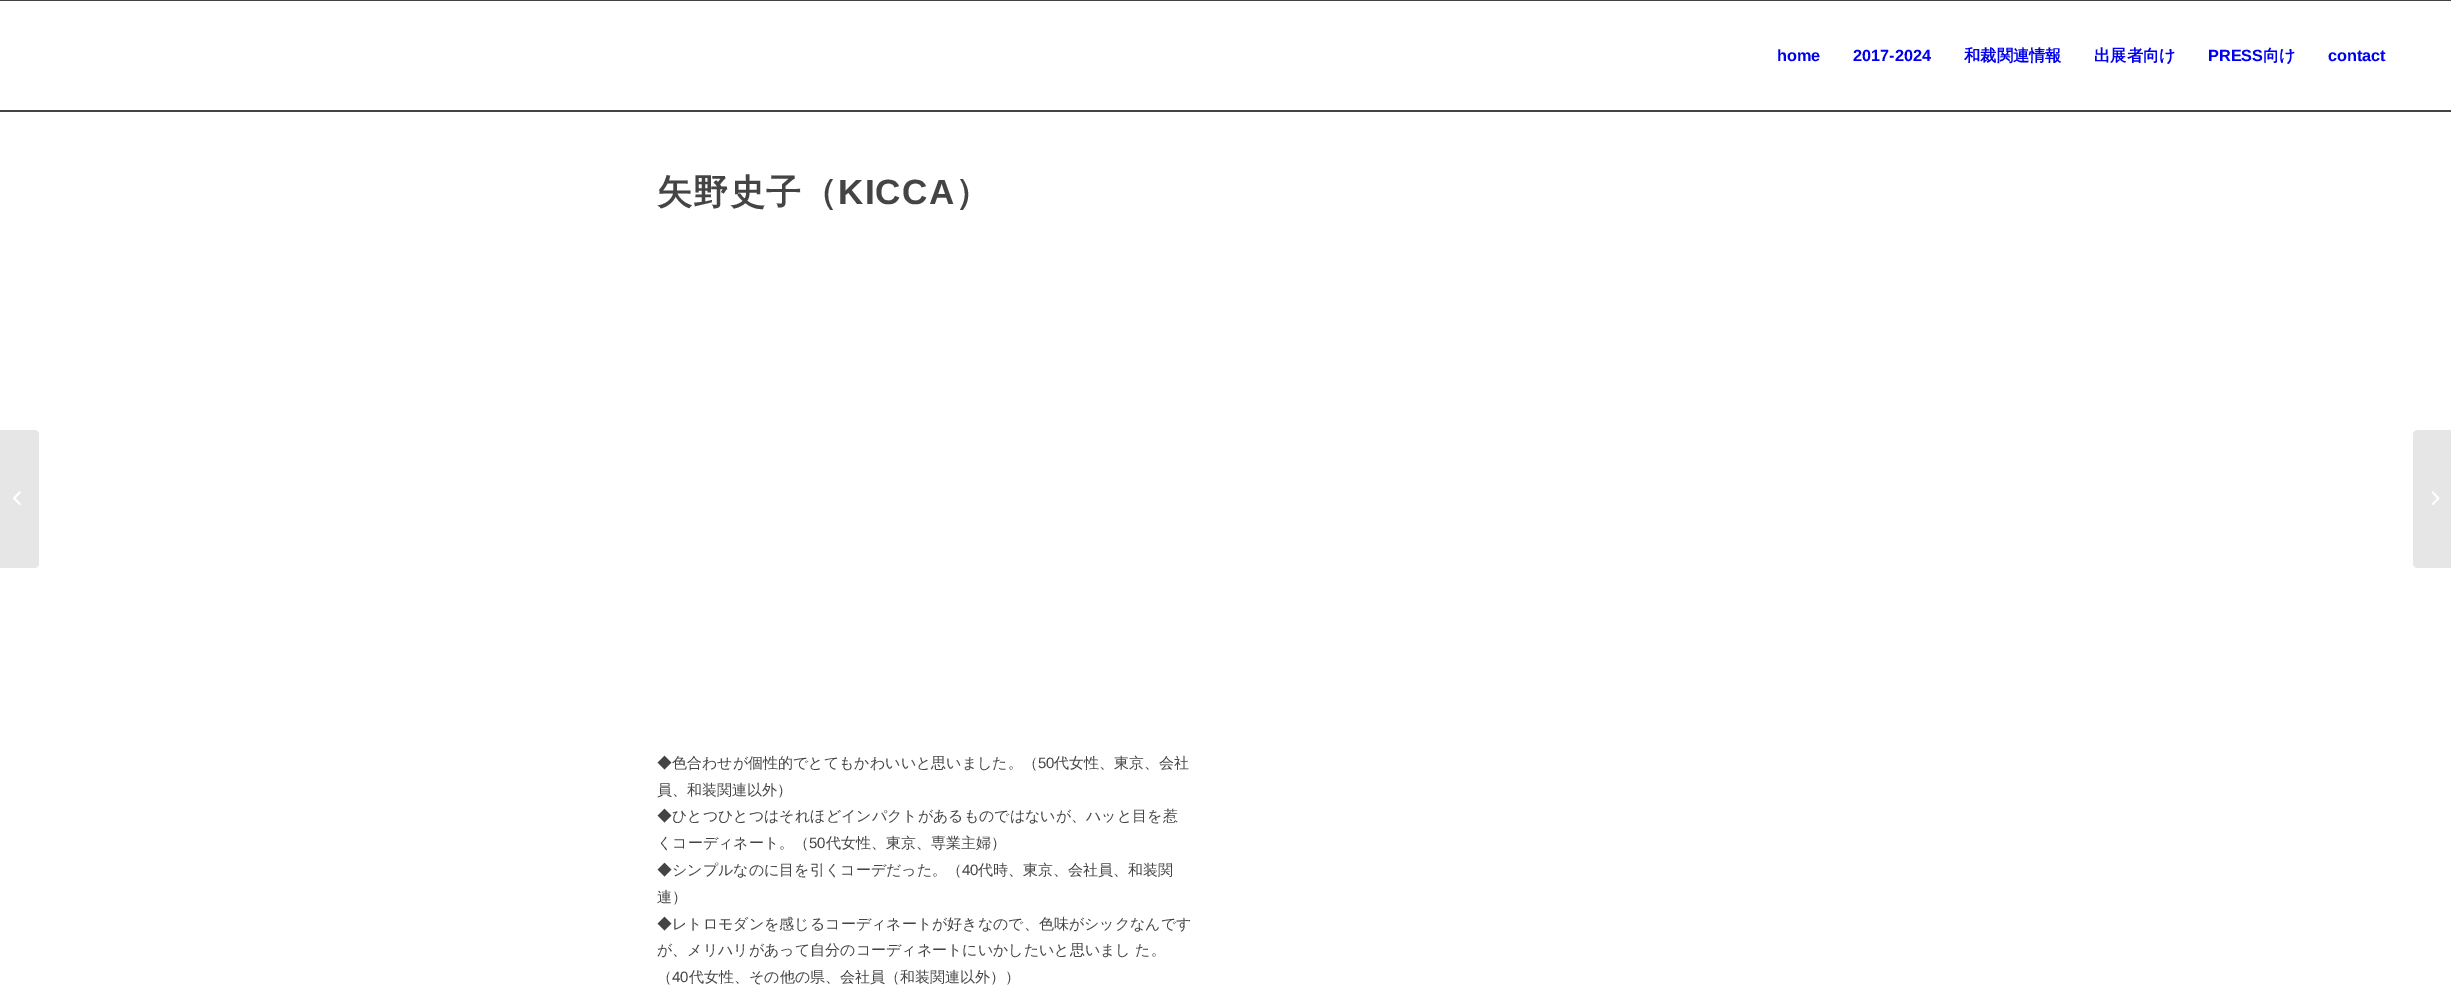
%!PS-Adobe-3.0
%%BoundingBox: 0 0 2451 997
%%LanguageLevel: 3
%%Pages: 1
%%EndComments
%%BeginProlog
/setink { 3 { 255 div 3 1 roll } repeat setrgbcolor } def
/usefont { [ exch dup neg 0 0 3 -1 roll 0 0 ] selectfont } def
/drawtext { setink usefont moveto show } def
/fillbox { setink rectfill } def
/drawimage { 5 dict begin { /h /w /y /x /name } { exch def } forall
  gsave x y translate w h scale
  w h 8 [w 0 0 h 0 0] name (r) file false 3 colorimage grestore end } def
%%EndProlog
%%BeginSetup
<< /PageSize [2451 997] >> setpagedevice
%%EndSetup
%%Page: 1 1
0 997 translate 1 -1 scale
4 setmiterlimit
0 0 2451 997 255 255 255 fillbox
0 0 2451 1 68 68 68 fillbox
(home) 1777 61 /LiberationSans-Bold 16.25 0 0 238 drawtext
(2017-2024) 1853 61 /LiberationSans-Bold 16.25 0 0 238 drawtext
(和裁関連情報) 1964 61 /WenQuanYiZenHei-Bold 16.25 0 0 238 drawtext
(出展者向け) 2094 61 /WenQuanYiZenHei-Bold 16.25 0 0 238 drawtext
(PRESS) 2208 61 /LiberationSans-Bold 16.25 0 0 238 drawtext
(向け) 2263 61 /WenQuanYiZenHei-Bold 16.25 0 0 238 drawtext
(contact) 2328 61 /LiberationSans-Bold 16.25 0 0 238 drawtext
230 230 230 setink
0 430 moveto 34 430 lineto 37 430 39 432 39 435 curveto 39 563 lineto 39 566 37 568 34 568 curveto 0 568 lineto closepath fill
(assets/img1.rgb) 13 491 8 14 drawimage
0 110 2451 2 68 68 68 fillbox
/WenQuanYiZenHei-Bold 35 usefont
657 204 moveto 1.25 0 (矢野史子（) ashow
/LiberationSans-Bold 35 usefont
838 204 moveto 1.25 0 (KICCA) ashow
/WenQuanYiZenHei-Bold 35 usefont
955 204 moveto 1.25 0 (）) ashow
(◆色合わせが個性的でとてもかわいいと思いました。（) 657 768 /WenQuanYiZenHei-Medium 15 68 68 68 drawtext
(50) 1038 768 /LiberationSans-Regular 15 68 68 68 drawtext
(代女性、東京、会社) 1054 768 /WenQuanYiZenHei-Medium 15 68 68 68 drawtext
(員、和装関連以外）) 657 795 /WenQuanYiZenHei-Medium 15 68 68 68 drawtext
(◆ひとつひとつはそれほどインパクトがあるものではないが、ハッと目を惹) 657 821 /WenQuanYiZenHei-Medium 15 68 68 68 drawtext
(くコーディネート。（) 657 848 /WenQuanYiZenHei-Medium 15 68 68 68 drawtext
(50) 809 848 /LiberationSans-Regular 15 68 68 68 drawtext
(代女性、東京、専業主婦）) 826 848 /WenQuanYiZenHei-Medium 15 68 68 68 drawtext
(◆シンプルなのに目を引くコーデだった。（) 657 875 /WenQuanYiZenHei-Medium 15 68 68 68 drawtext
(40) 962 875 /LiberationSans-Regular 15 68 68 68 drawtext
(代時、東京、会社員、和装関) 978 875 /WenQuanYiZenHei-Medium 15 68 68 68 drawtext
(連）) 657 902 /WenQuanYiZenHei-Medium 15 68 68 68 drawtext
(◆レトロモダンを感じるコーディネートが好きなので、色味がシックなんです) 657 929 /WenQuanYiZenHei-Medium 15 68 68 68 drawtext
(が、メリハリがあって自分のコーディネートにいかしたいと思いまし た。) 657 955 /WenQuanYiZenHei-Medium 15 68 68 68 drawtext
(（) 657 982 /WenQuanYiZenHei-Medium 15 68 68 68 drawtext
(40) 672 982 /LiberationSans-Regular 15 68 68 68 drawtext
(代女性、その他の県、会社員（和装関連以外））) 689 982 /WenQuanYiZenHei-Medium 15 68 68 68 drawtext
230 230 230 setink
2418 430 moveto 2451 430 lineto 2451 568 lineto 2418 568 lineto 2415 568 2413 566 2413 563 curveto 2413 435 lineto 2413 432 2415 430 2418 430 curveto closepath fill
(assets/img2.rgb) 2431 491 9 14 drawimage
showpage
%%EOF
